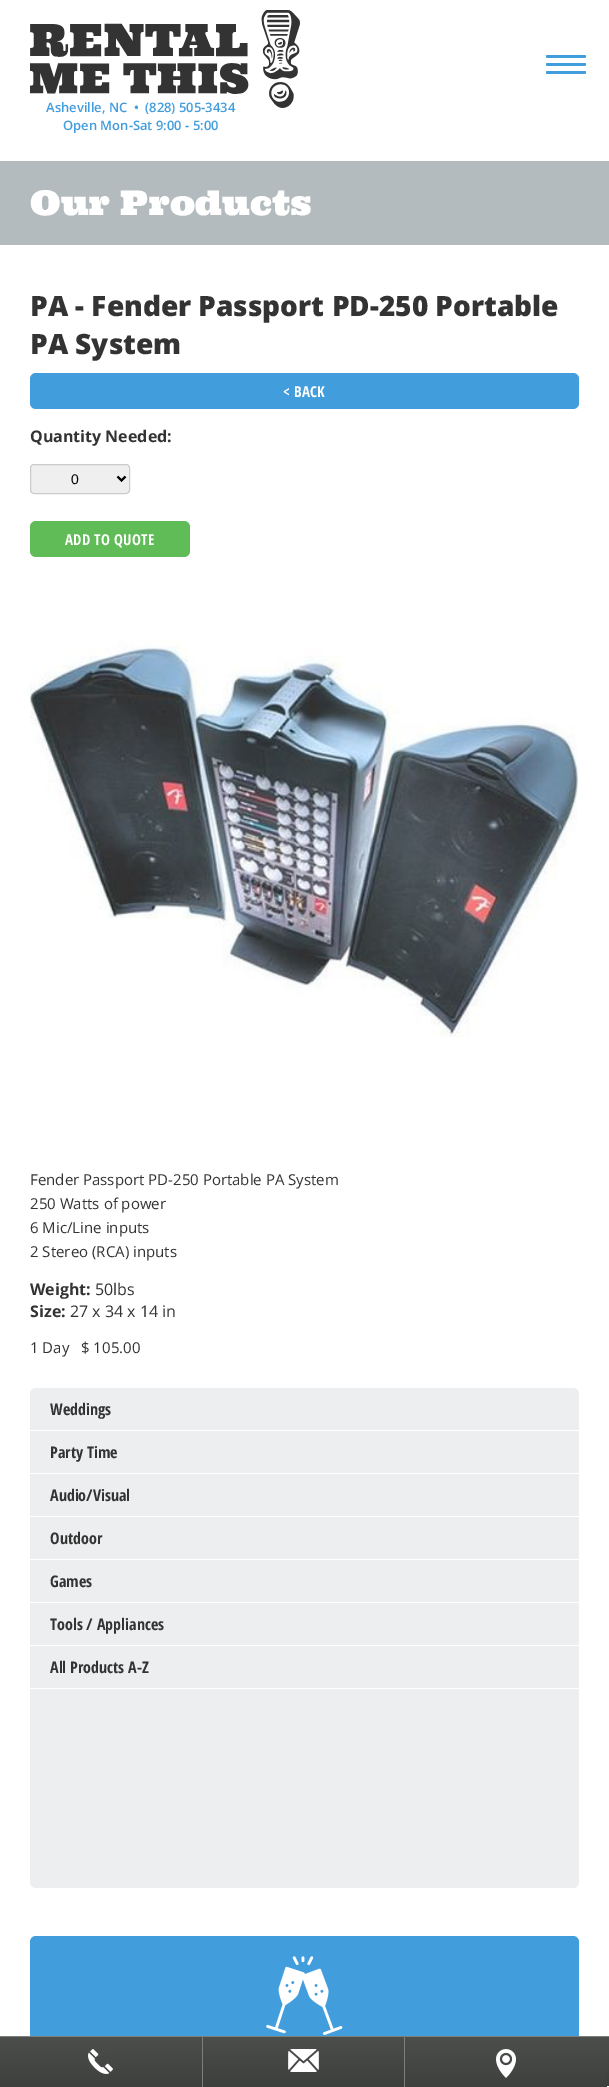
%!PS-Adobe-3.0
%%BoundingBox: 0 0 609 2087
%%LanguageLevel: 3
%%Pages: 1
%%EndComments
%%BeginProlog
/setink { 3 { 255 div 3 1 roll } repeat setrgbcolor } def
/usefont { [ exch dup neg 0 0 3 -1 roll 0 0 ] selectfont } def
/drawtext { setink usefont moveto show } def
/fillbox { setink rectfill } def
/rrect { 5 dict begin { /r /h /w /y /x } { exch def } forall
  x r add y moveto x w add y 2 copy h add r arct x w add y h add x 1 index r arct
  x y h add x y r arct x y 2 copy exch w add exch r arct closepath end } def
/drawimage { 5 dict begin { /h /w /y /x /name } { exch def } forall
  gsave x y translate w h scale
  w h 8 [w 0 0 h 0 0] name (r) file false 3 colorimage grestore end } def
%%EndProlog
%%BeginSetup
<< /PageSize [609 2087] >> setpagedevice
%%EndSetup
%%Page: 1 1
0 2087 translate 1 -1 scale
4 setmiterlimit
0 0 609 2087 255 255 255 fillbox
66 157 221 setink
546 55 40 3 1.5 rrect fill
546 63 40 3 1.5 rrect fill
546 71 40 3 1.5 rrect fill
(assets/img1.rgb) 30 10 270 98 drawimage
(Asheville, NC) 46 112 /OpenSans-SemiBold 13 66 157 221 drawtext
(•) 134 112 /OpenSans-SemiBold 13 66 157 221 drawtext
(\(828\) 505-3434) 145 112 /OpenSans-SemiBold 13 66 157 221 drawtext
(Open Mon-Sat 9:00 - 5:00) 63 130 /OpenSans-SemiBold 13 66 157 221 drawtext
0 161 609 84 179 187 191 fillbox
(Our Products) 30 215 /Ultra-Regular 34 255 255 255 drawtext
(PA - Fender Passport PD-250 Portable) 30 316 /OpenSans-ExtraBold 28 51 51 51 drawtext
(PA System) 30 354 /OpenSans-ExtraBold 28 51 51 51 drawtext
66 157 221 setink
30 373 549 36 6 rrect fill
/OpenSansCondensed-Bold 15 usefont
255 255 255 setink
283 397 moveto 0.25 0 (< BACK) ashow
(Quantity Needed:) 30 442 /OpenSans-Bold 16 51 51 51 drawtext
239 239 239 setink
30.5 464.5 99 29 3.5 rrect gsave fill grestore
204 204 204 setink
stroke
0 0 0 setink
2 setlinewidth
117.5 476.5 moveto 121.5 480.5 lineto 125.5 476.5 lineto stroke
(0) 71 484 /LiberationSans-Regular 14 0 0 0 drawtext
96 188 86 setink
30 521 160 36 6 rrect fill
/OpenSansCondensed-Bold 15 usefont
255 255 255 setink
65 545 moveto 0.25 0 (ADD TO QUOTE) ashow
(assets/img2.rgb) 30 639 549 398 drawimage
(Fender Passport PD-250 Portable PA System) 30 1185 /OpenSans-Regular 15 51 51 51 drawtext
(250 Watts of power) 30 1209 /OpenSans-Regular 15 51 51 51 drawtext
(6 Mic/Line inputs) 30 1233 /OpenSans-Regular 15 51 51 51 drawtext
(2 Stereo \(RCA\) inputs) 30 1257 /OpenSans-Regular 15 51 51 51 drawtext
(Weight:) 30 1295 /OpenSans-Bold 16 51 51 51 drawtext
(50lbs) 95 1295 /OpenSans-Regular 16 51 51 51 drawtext
(Size:) 30 1317 /OpenSans-Bold 16 51 51 51 drawtext
(27 x 34 x 14 in) 70 1317 /OpenSans-Regular 16 51 51 51 drawtext
(1 Day) 30 1353 /OpenSans-Regular 15 51 51 51 drawtext
($ 105.00) 81 1353 /OpenSans-Regular 15 51 51 51 drawtext
236 238 239 setink
30 1388 549 500 6 rrect fill
30 1430 549 1 255 255 255 fillbox
(Weddings) 50 1415 /OpenSansCondensed-Bold 16 51 51 51 drawtext
30 1473 549 1 255 255 255 fillbox
(Party Time) 50 1458 /OpenSansCondensed-Bold 16 51 51 51 drawtext
30 1516 549 1 255 255 255 fillbox
(Audio/Visual) 50 1501 /OpenSansCondensed-Bold 16 51 51 51 drawtext
30 1559 549 1 255 255 255 fillbox
(Outdoor) 50 1544 /OpenSansCondensed-Bold 16 51 51 51 drawtext
30 1602 549 1 255 255 255 fillbox
(Games) 50 1587 /OpenSansCondensed-Bold 16 51 51 51 drawtext
30 1645 549 1 255 255 255 fillbox
(Tools / Appliances) 50 1630 /OpenSansCondensed-Bold 16 51 51 51 drawtext
30 1688 549 1 255 255 255 fillbox
(All Products A-Z) 50 1673 /OpenSansCondensed-Bold 16 51 51 51 drawtext
66 157 221 setink
30 1936 549 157 6 rrect fill
(assets/img3.rgb) 266 1956 77 79 drawimage
gsave 607 2037 moveto 609 2037 lineto 609 2086 lineto 607 2086 lineto closepath clip newpath
<< /ShadingType 2 /ColorSpace /DeviceRGB /Coords [305 2037 305 2086] /Extend [true true] /Function << /FunctionType 2 /Domain [0 1] /C0 [0.298 0.306 0.298] /C1 [0.239 0.247 0.239] /N 1 >> >> shfill grestore
0 2036 609 1 124 128 122 fillbox
gsave 0 2037 moveto 202 2037 lineto 202 2087 lineto 0 2087 lineto closepath clip newpath
<< /ShadingType 2 /ColorSpace /DeviceRGB /Coords [101 2037 101 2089] /Extend [true true] /Function << /FunctionType 2 /Domain [0 1] /C0 [0.298 0.306 0.298] /C1 [0.239 0.247 0.239] /N 1 >> >> shfill grestore
202 2037 1 50 124 128 122 fillbox
(assets/img4.rgb) 88 2049 25 25 drawimage
gsave 203 2037 moveto 404 2037 lineto 404 2087 lineto 203 2087 lineto closepath clip newpath
<< /ShadingType 2 /ColorSpace /DeviceRGB /Coords [304 2037 304 2087] /Extend [true true] /Function << /FunctionType 2 /Domain [0 1] /C0 [0.298 0.306 0.298] /C1 [0.239 0.247 0.239] /N 1 >> >> shfill grestore
404 2037 1 50 124 128 122 fillbox
(assets/img5.rgb) 288 2049 31 23 drawimage
gsave 405 2037 moveto 607 2037 lineto 607 2087 lineto 405 2087 lineto closepath clip newpath
<< /ShadingType 2 /ColorSpace /DeviceRGB /Coords [506 2037 506 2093] /Extend [true true] /Function << /FunctionType 2 /Domain [0 1] /C0 [0.298 0.306 0.298] /C1 [0.239 0.247 0.239] /N 1 >> >> shfill grestore
(assets/img6.rgb) 496 2049 20 29 drawimage
showpage
%%EOF
